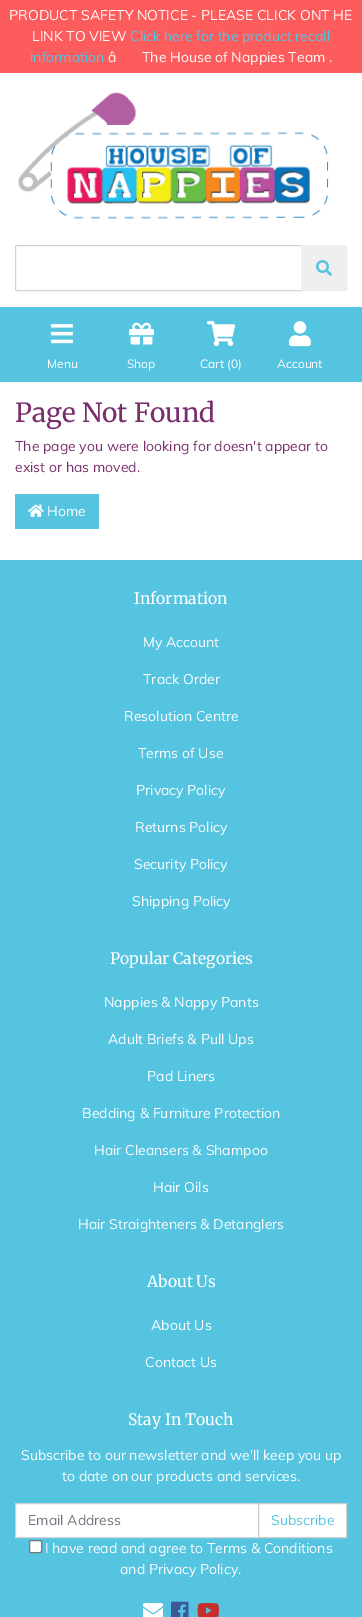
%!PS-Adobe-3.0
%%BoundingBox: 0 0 362 1617
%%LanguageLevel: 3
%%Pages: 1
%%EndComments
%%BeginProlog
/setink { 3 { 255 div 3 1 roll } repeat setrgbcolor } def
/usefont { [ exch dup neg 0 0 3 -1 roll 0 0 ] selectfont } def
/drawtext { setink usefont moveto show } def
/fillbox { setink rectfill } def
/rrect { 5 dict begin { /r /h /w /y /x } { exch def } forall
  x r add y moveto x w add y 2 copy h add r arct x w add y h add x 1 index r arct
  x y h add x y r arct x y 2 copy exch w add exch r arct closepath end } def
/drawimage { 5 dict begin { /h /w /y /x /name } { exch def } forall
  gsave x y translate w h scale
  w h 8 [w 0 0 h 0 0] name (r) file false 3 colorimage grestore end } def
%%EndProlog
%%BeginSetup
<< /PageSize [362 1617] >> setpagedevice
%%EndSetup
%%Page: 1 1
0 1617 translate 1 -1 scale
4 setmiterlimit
0 0 362 1617 255 255 255 fillbox
0 0 362 73 253 92 92 fillbox
(PRODUCT SAFETY NOTICE - PLEASE CLICK ONT HE) 9 20 /Muli-Regular 14 255 255 255 drawtext
(LINK TO VIEW) 32 41 /Muli-Regular 14 255 255 255 drawtext
(Click here for the product recall) 130 41 /Muli-Regular 14 85 196 224 drawtext
(information) 30 62 /Muli-Regular 14 85 196 224 drawtext
(â) 108 62 /Muli-Regular 14 255 255 255 drawtext
(The House of Nappies Team .) 142 62 /Muli-Regular 14 255 255 255 drawtext
(assets/img1.rgb) 18 92 311 127 drawimage
206 212 218 setink
17 245.5 moveto 301.5 245.5 lineto 301.5 290.5 lineto 17 290.5 lineto 16 290.5 15.5 290 15.5 289 curveto 15.5 247 lineto 15.5 246 16 245.5 17 245.5 curveto closepath stroke
239 239 239 setink
301.5 245.5 moveto 345 245.5 lineto 346 245.5 346.5 246 346.5 247 curveto 346.5 289 lineto 346.5 290 346 290.5 345 290.5 curveto 301.5 290.5 lineto closepath gsave fill grestore
stroke
(assets/img2.rgb) 316 260 16 16 drawimage
0 307 362 75 85 196 224 fillbox
(assets/img3.rgb) 51 324 22 20 drawimage
(Menu) 47 368 /Muli-Regular 12 255 255 255 drawtext
(assets/img4.rgb) 129 322 25 23 drawimage
(Shop) 127 368 /Muli-Regular 12 255 255 255 drawtext
(assets/img5.rgb) 207 321 29 26 drawimage
(Cart \(0\)) 200 368 /Muli-Regular 12 255 255 255 drawtext
(assets/img6.rgb) 289 321 22 26 drawimage
(Account) 277 368 /Muli-Regular 12 255 255 255 drawtext
(Page Not Found) 15 422 /Merriweather-Regular 26.25 122 46 109 drawtext
(The page you were looking for doesn't appear to) 15 451 /Muli-Regular 14 122 46 109 drawtext
(exist or has moved.) 15 472 /Muli-Regular 14 122 46 109 drawtext
15 494 84 35 85 196 224 fillbox
(assets/img7.rgb) 28 504 16 13 drawimage
(Home) 47 516 /Muli-Regular 14 255 255 255 drawtext
0 560 362 1057 85 196 224 fillbox
(Information) 134 604 /Merriweather-Regular 15.75 255 255 255 drawtext
(My Account) 143 647 /Muli-Regular 14 255 255 255 drawtext
(Track Order) 143 684 /Muli-Regular 14 255 255 255 drawtext
(Resolution Centre) 124 721 /Muli-Regular 14 255 255 255 drawtext
(Terms of Use) 138 758 /Muli-Regular 14 255 255 255 drawtext
(Privacy Policy) 136 795 /Muli-Regular 14 255 255 255 drawtext
(Returns Policy) 135 832 /Muli-Regular 14 255 255 255 drawtext
(Security Policy) 134 869 /Muli-Regular 14 255 255 255 drawtext
(Shipping Policy) 132 906 /Muli-Regular 14 255 255 255 drawtext
(Popular Categories) 110 964 /Merriweather-Regular 15.75 255 255 255 drawtext
(Nappies & Nappy Pants) 104 1007 /Muli-Regular 14 255 255 255 drawtext
(Adult Briefs & Pull Ups) 108 1044 /Muli-Regular 14 255 255 255 drawtext
(Pad Liners) 147 1081 /Muli-Regular 14 255 255 255 drawtext
(Bedding & Furniture Protection) 82 1118 /Muli-Regular 14 255 255 255 drawtext
(Hair Cleansers & Shampoo) 94 1155 /Muli-Regular 14 255 255 255 drawtext
(Hair Oils) 153 1192 /Muli-Regular 14 255 255 255 drawtext
(Hair Straighteners & Detanglers) 78 1229 /Muli-Regular 14 255 255 255 drawtext
(About Us) 147 1287 /Merriweather-Regular 15.75 255 255 255 drawtext
(About Us) 151 1330 /Muli-Regular 14 255 255 255 drawtext
(Contact Us) 145 1367 /Muli-Regular 14 255 255 255 drawtext
(Stay In Touch) 128 1425 /Merriweather-Regular 15.75 255 255 255 drawtext
(Subscribe to our newsletter and we'll keep you up) 21 1460 /Muli-Regular 14 255 255 255 drawtext
(to date on our products and services.) 62 1481 /Muli-Regular 14 255 255 255 drawtext
15.5 1503.5 moveto 258.5 1503.5 lineto 258.5 1537.5 lineto 15.5 1537.5 lineto closepath gsave fill grestore
206 212 218 setink
stroke
(Email Address) 28 1525 /Muli-Regular 14 108 117 125 drawtext
255 255 255 setink
258.5 1503.5 moveto 346.5 1503.5 lineto 346.5 1537.5 lineto 258.5 1537.5 lineto closepath gsave fill grestore
204 204 204 setink
stroke
(Subscribe) 271 1525 /Muli-Regular 14 85 196 224 drawtext
255 255 255 setink
29.5 1540.5 12 12 1.5 rrect gsave fill grestore
118 118 118 setink
stroke
(I have read and agree to Terms & Conditions) 45 1553 /Muli-Regular 14 255 255 255 drawtext
(and Privacy Policy.) 120 1574 /Muli-Regular 14 255 255 255 drawtext
(assets/img8.rgb) 143 1603 20 14 drawimage
(assets/img9.rgb) 171 1601 18 16 drawimage
(assets/img10.rgb) 197 1603 22 14 drawimage
showpage
%%EOF
